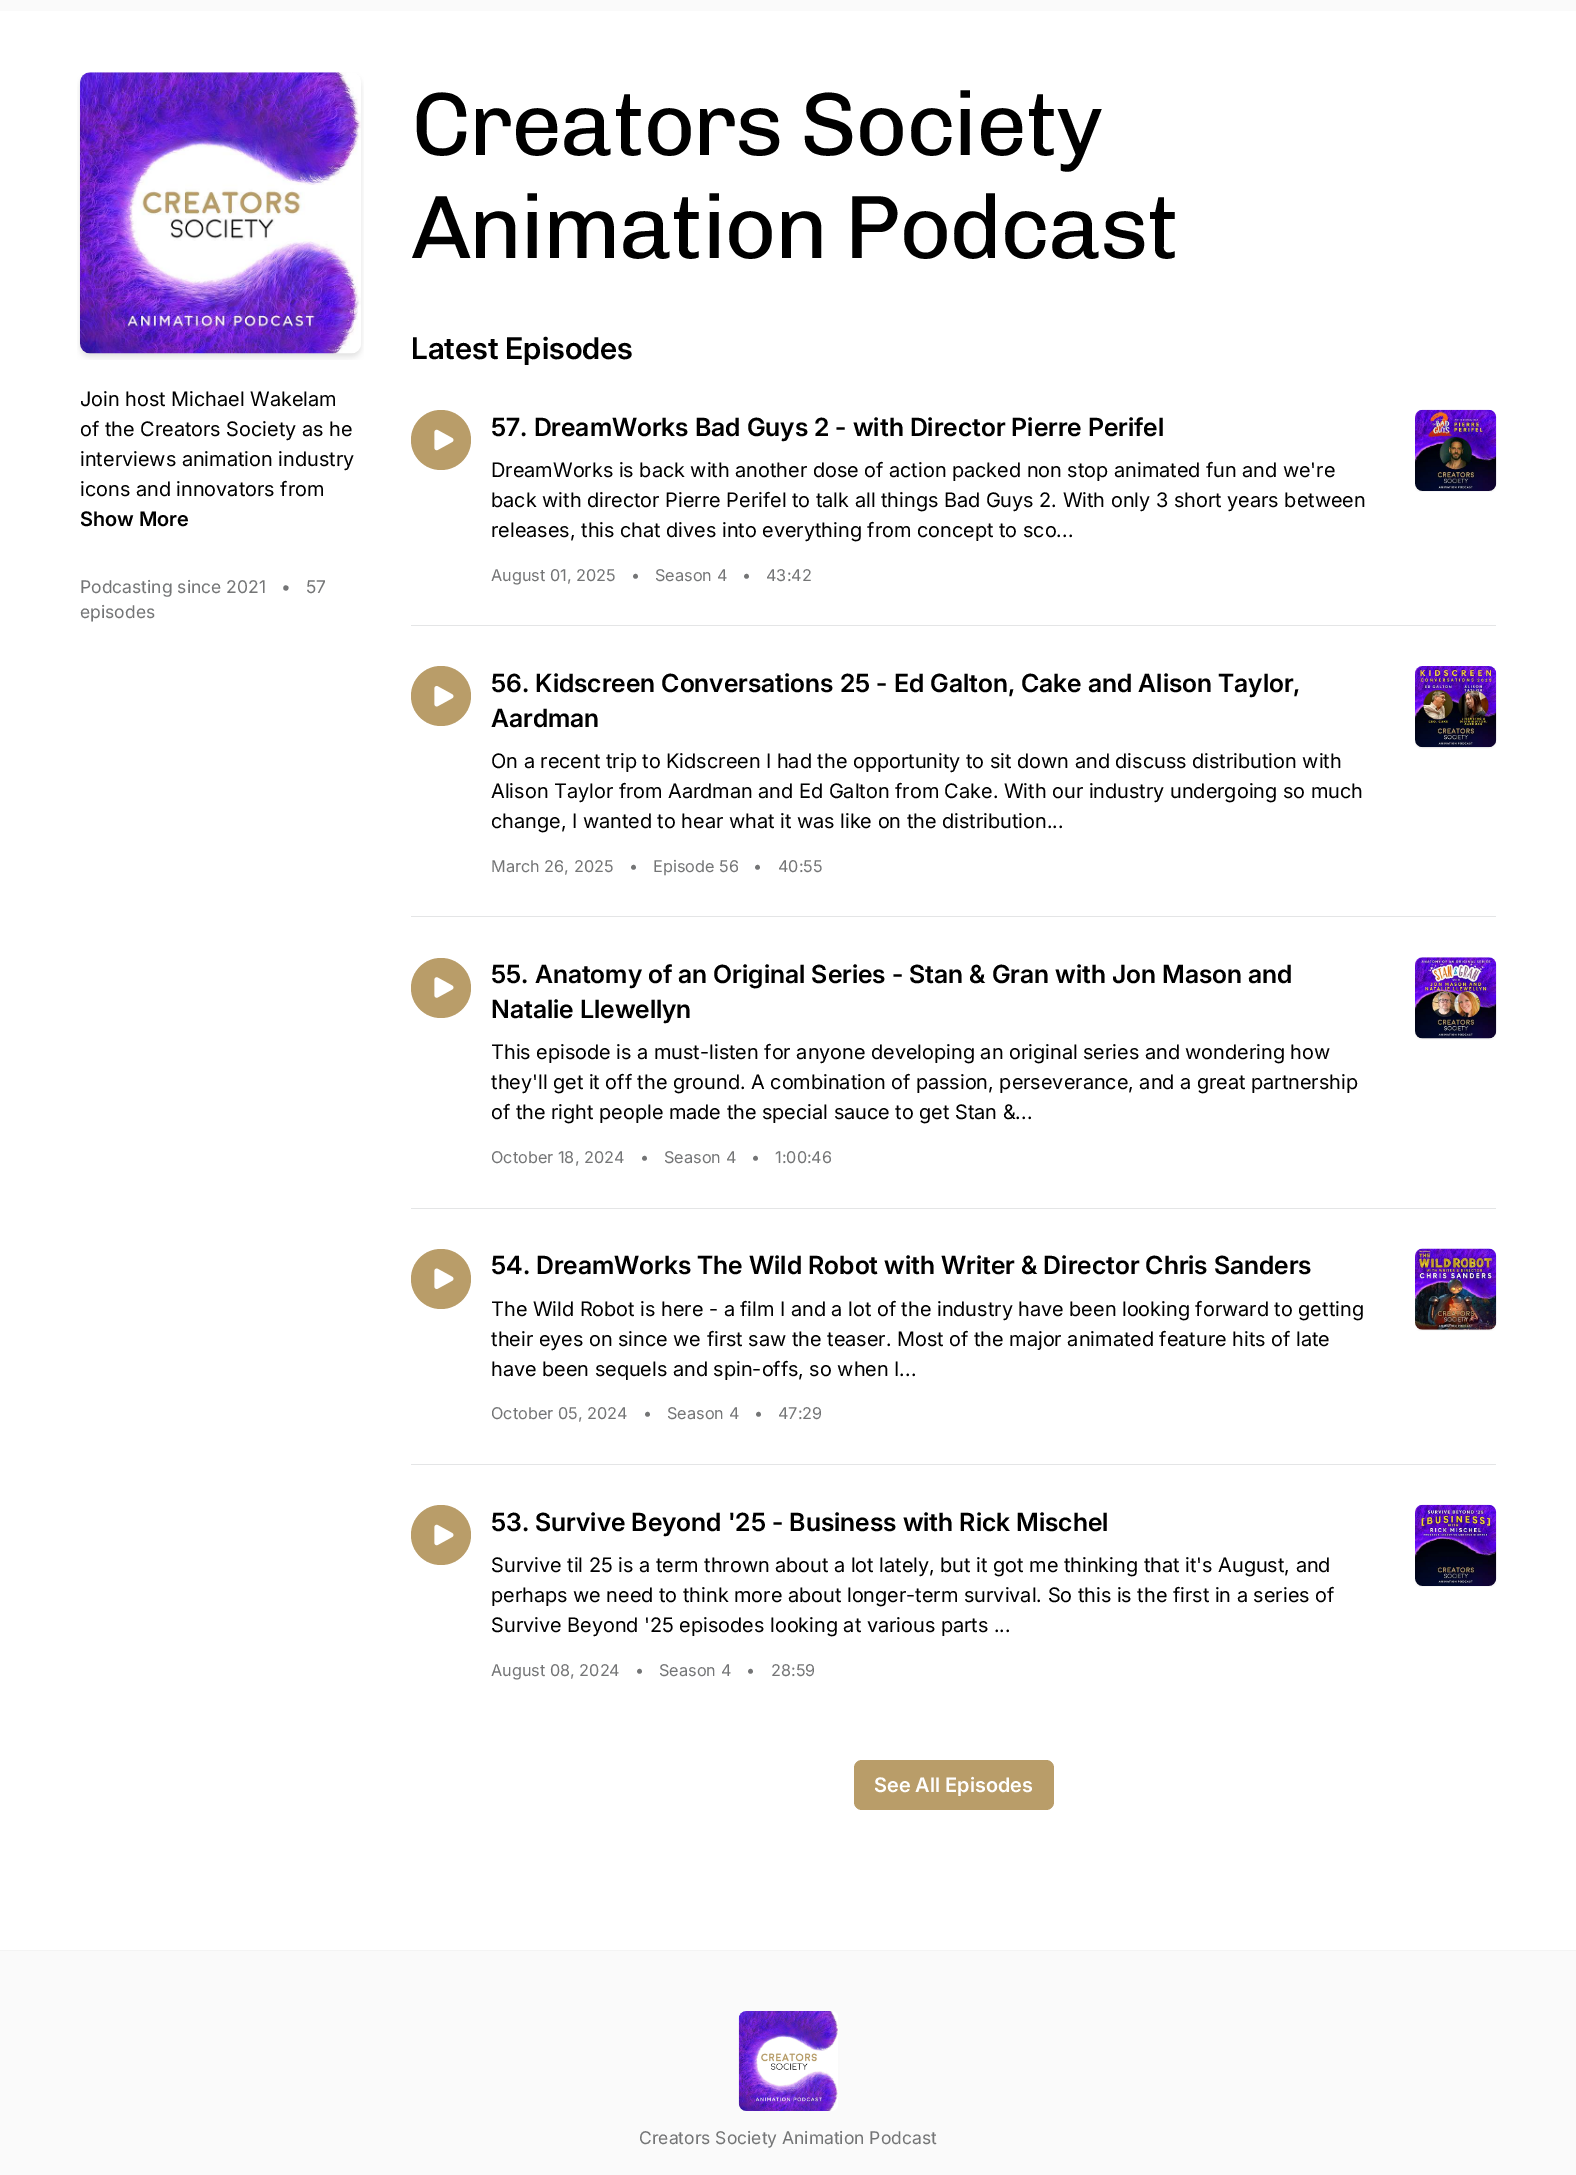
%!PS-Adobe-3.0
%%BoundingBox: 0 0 1576 2175
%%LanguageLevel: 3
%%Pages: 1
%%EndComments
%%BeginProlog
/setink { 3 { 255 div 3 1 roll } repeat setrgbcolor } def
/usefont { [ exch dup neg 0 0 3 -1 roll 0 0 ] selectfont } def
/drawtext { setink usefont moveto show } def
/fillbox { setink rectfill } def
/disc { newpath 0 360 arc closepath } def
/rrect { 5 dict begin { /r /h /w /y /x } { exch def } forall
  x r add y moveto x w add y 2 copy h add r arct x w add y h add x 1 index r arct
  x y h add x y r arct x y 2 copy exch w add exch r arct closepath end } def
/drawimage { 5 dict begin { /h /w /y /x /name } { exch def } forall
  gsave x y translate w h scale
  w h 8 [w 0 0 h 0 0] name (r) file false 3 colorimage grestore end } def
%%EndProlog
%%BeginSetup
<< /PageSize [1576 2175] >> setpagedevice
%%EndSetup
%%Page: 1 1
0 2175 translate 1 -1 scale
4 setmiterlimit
0 0 1576 2175 255 255 255 fillbox
0 0 1576 11 250 250 250 fillbox
(assets/img1.rgb) 77 72 287 288 drawimage
(Join host Michael Wakelam) 80 406 /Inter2-Regular 20 0 0 0 drawtext
(of the Creators Society as he) 80 436 /Inter2-Regular 20 0 0 0 drawtext
(interviews animation industry) 80 466 /Inter2-Regular 20 0 0 0 drawtext
(icons and innovators from) 80 496 /Inter2-Regular 20 0 0 0 drawtext
(Show More) 80 526 /Inter-SemiBold 20 0 0 0 drawtext
(Podcasting since 2021) 80 593 /Inter-Regular 17.5 116 117 118 drawtext
(•) 281 593 /Inter-Regular 17.5 116 117 118 drawtext
(57) 306 593 /Inter-Regular 17.5 116 117 118 drawtext
(episodes) 80 618 /Inter-Regular 17.5 116 117 118 drawtext
/Chivo-Medium 90 usefont
0 0 0 setink
411 155 moveto -2.25 0 (Creators Society) ashow
411 258 moveto -2.25 0 (Animation Podcast) ashow
(Latest Episodes) 411 359 /Inter2-SemiBold 30 0 0 0 drawtext
185 157 105 setink
441 440 30 disc fill
(assets/img2.rgb) 434 429 20 22 drawimage
(57. DreamWorks Bad Guys 2 - with Director Pierre Perifel) 491 436 /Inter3-SemiBold 25 0 0 0 drawtext
(DreamWorks is back with another dose of action packed non stop animated fun and we're) 491 477 /Inter2-Regular 20 0 0 0 drawtext
(back with director Pierre Perifel to talk all things Bad Guys 2. With only 3 short years between) 491 507 /Inter2-Regular 20 0 0 0 drawtext
(releases, this chat dives into everything from concept to sco...) 491 537 /Inter2-Regular 20 0 0 0 drawtext
(August 01, 2025) 491 581 /Inter-Regular 16.25 116 117 118 drawtext
(•) 631 581 /Inter-Regular 16.25 116 117 118 drawtext
(Season 4) 655 581 /Inter-Regular 16.25 116 117 118 drawtext
(•) 742 581 /Inter-Regular 16.25 116 117 118 drawtext
(43:42) 766 581 /Inter-Regular 16.25 116 117 118 drawtext
(assets/img3.rgb) 1415 409 82 83 drawimage
411 625 1085 1 228 229 230 fillbox
185 157 105 setink
441 696 30 disc fill
(assets/img4.rgb) 434 686 20 21 drawimage
(56. Kidscreen Conversations 25 - Ed Galton, Cake and Alison Taylor,) 491 692 /Inter3-SemiBold 25 0 0 0 drawtext
(Aardman) 491 727 /Inter3-SemiBold 25 0 0 0 drawtext
(On a recent trip to Kidscreen I had the opportunity to sit down and discuss distribution with) 491 768 /Inter2-Regular 20 0 0 0 drawtext
(Alison Taylor from Aardman and Ed Galton from Cake. With our industry undergoing so much) 491 798 /Inter2-Regular 20 0 0 0 drawtext
(change, I wanted to hear what it was like on the distribution...) 491 828 /Inter2-Regular 20 0 0 0 drawtext
(March 26, 2025) 491 872 /Inter-Regular 16.25 116 117 118 drawtext
(•) 629 872 /Inter-Regular 16.25 116 117 118 drawtext
(Episode 56) 653 872 /Inter-Regular 16.25 116 117 118 drawtext
(•) 753 872 /Inter-Regular 16.25 116 117 118 drawtext
(40:55) 778 872 /Inter-Regular 16.25 116 117 118 drawtext
(assets/img5.rgb) 1415 666 82 83 drawimage
411 916 1085 1 228 229 230 fillbox
185 157 105 setink
441 988 30 disc fill
(assets/img6.rgb) 434 977 20 21 drawimage
(55. Anatomy of an Original Series - Stan & Gran with Jon Mason and) 491 983 /Inter3-SemiBold 25 0 0 0 drawtext
(Natalie Llewellyn) 491 1018 /Inter3-SemiBold 25 0 0 0 drawtext
(This episode is a must-listen for anyone developing an original series and wondering how) 491 1059 /Inter2-Regular 20 0 0 0 drawtext
(they'll get it off the ground. A combination of passion, perseverance, and a great partnership) 491 1089 /Inter2-Regular 20 0 0 0 drawtext
(of the right people made the special sauce to get Stan &...) 491 1119 /Inter2-Regular 20 0 0 0 drawtext
(October 18, 2024) 491 1163 /Inter-Regular 16.25 116 117 118 drawtext
(•) 640 1163 /Inter-Regular 16.25 116 117 118 drawtext
(Season 4) 664 1163 /Inter-Regular 16.25 116 117 118 drawtext
(•) 751 1163 /Inter-Regular 16.25 116 117 118 drawtext
(1:00:46) 775 1163 /Inter-Regular 16.25 116 117 118 drawtext
(assets/img7.rgb) 1415 957 82 83 drawimage
411 1208 1085 1 228 229 230 fillbox
185 157 105 setink
441 1279 30 disc fill
(assets/img8.rgb) 434 1268 20 21 drawimage
(54. DreamWorks The Wild Robot with Writer & Director Chris Sanders) 491 1274 /Inter3-SemiBold 25 0 0 0 drawtext
(The Wild Robot is here - a film I and a lot of the industry have been looking forward to getting) 491 1316 /Inter2-Regular 20 0 0 0 drawtext
(their eyes on since we first saw the teaser. Most of the major animated feature hits of late) 491 1346 /Inter2-Regular 20 0 0 0 drawtext
(have been sequels and spin-offs, so when I...) 491 1376 /Inter2-Regular 20 0 0 0 drawtext
(October 05, 2024) 491 1419 /Inter-Regular 16.25 116 117 118 drawtext
(•) 643 1419 /Inter-Regular 16.25 116 117 118 drawtext
(Season 4) 667 1419 /Inter-Regular 16.25 116 117 118 drawtext
(•) 754 1419 /Inter-Regular 16.25 116 117 118 drawtext
(47:29) 778 1419 /Inter-Regular 16.25 116 117 118 drawtext
(assets/img9.rgb) 1415 1248 82 83 drawimage
411 1464 1085 1 228 229 230 fillbox
185 157 105 setink
441 1535 30 disc fill
(assets/img2.rgb) 434 1524 20 22 drawimage
(53. Survive Beyond '25 - Business with Rick Mischel) 491 1531 /Inter3-SemiBold 25 0 0 0 drawtext
(Survive til 25 is a term thrown about a lot lately, but it got me thinking that it's August, and) 491 1572 /Inter2-Regular 20 0 0 0 drawtext
(perhaps we need to think more about longer-term survival. So this is the first in a series of) 491 1602 /Inter2-Regular 20 0 0 0 drawtext
(Survive Beyond '25 episodes looking at various parts ...) 491 1632 /Inter2-Regular 20 0 0 0 drawtext
(August 08, 2024) 491 1676 /Inter-Regular 16.25 116 117 118 drawtext
(•) 635 1676 /Inter-Regular 16.25 116 117 118 drawtext
(Season 4) 659 1676 /Inter-Regular 16.25 116 117 118 drawtext
(•) 746 1676 /Inter-Regular 16.25 116 117 118 drawtext
(28:59) 771 1676 /Inter-Regular 16.25 116 117 118 drawtext
(assets/img10.rgb) 1415 1504 82 83 drawimage
185 157 105 setink
854 1760 200 50 8 rrect fill
(See All Episodes) 874 1792 /Inter-SemiBold 20 255 255 255 drawtext
0 1951 1576 224 250 250 250 fillbox
0 1950 1576 1 244 244 244 fillbox
(assets/img11.rgb) 738 2011 100 100 drawimage
(Creators Society Animation Podcast) 639 2144 /Inter-Regular 17.5 116 117 118 drawtext
showpage
%%EOF
